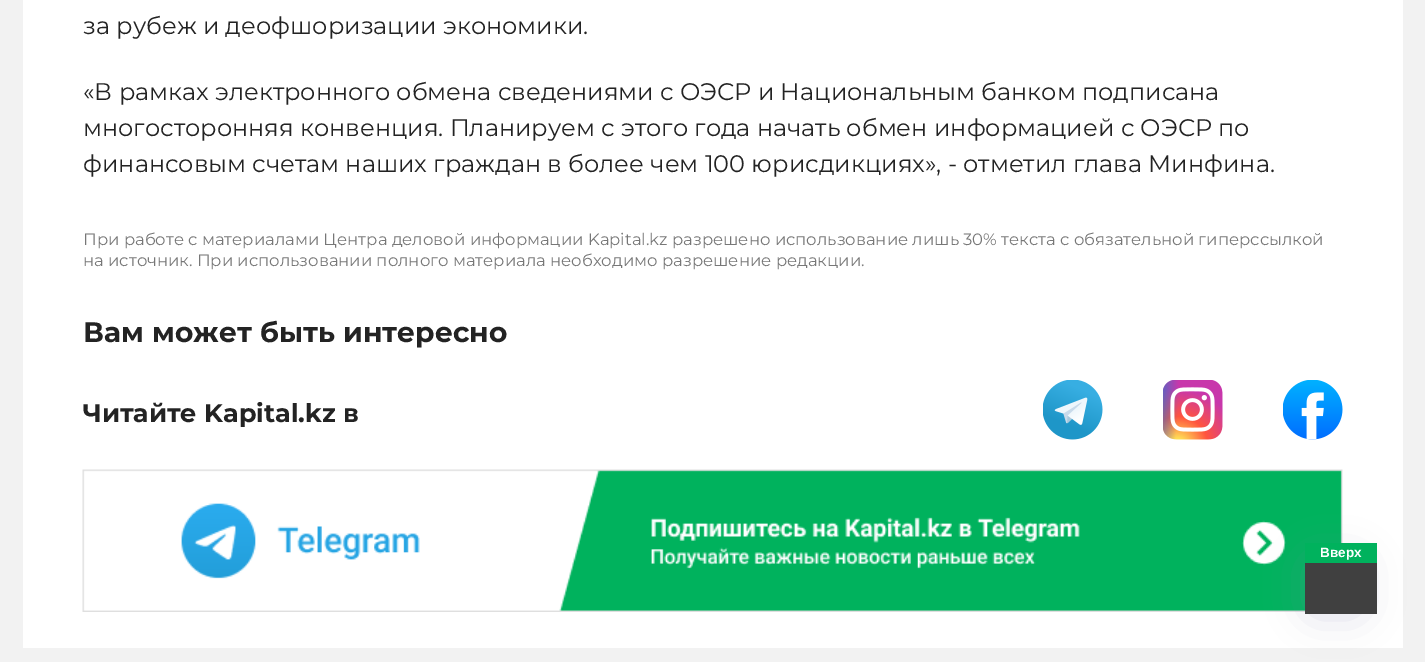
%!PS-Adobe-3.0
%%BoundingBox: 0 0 1425 662
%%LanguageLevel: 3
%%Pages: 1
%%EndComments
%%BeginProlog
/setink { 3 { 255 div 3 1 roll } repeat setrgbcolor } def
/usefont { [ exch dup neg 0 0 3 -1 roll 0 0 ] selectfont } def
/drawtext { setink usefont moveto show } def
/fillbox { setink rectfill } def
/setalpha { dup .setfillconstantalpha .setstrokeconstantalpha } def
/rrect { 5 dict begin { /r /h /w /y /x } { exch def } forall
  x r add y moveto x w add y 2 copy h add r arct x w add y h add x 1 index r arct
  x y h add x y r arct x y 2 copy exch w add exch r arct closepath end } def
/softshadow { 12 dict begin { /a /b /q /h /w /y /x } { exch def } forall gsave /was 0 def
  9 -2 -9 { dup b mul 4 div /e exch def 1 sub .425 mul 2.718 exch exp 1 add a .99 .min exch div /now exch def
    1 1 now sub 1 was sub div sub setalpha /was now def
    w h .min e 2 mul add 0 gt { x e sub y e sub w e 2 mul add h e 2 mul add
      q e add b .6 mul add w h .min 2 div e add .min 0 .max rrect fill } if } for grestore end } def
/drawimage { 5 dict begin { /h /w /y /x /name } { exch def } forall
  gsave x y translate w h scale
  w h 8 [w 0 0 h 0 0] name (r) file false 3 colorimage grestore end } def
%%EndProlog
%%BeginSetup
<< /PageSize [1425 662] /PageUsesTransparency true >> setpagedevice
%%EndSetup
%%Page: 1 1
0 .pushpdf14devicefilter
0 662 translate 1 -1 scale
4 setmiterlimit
0 0 1425 662 242 242 242 fillbox
23 0 1380 648 255 255 255 fillbox
(за рубеж и деофшоризации экономики.) 83 34 /Montserrat-Regular 24 35 35 35 drawtext
(«В рамках электронного обмена сведениями с ОЭСР и Национальным банком подписана) 83 100 /Montserrat-Regular 24 35 35 35 drawtext
(многосторонняя конвенция. Планируем с этого года начать обмен информацией с ОЭСР по) 83 136 /Montserrat-Regular 24 35 35 35 drawtext
(финансовым счетам наших граждан в более чем 100 юрисдикциях», - отметил глава Минфина.) 83 172 /Montserrat-Regular 24 35 35 35 drawtext
(При работе с материалами Центра деловой информации Kapital.kz разрешено использование лишь 30% текста с обязательной гиперссылкой) 83 245 /Montserrat-Regular 16.5 119 119 119 drawtext
(на источник. При использовании полного материала необходимо разрешение редакции.) 83 266 /Montserrat-Regular 16.5 119 119 119 drawtext
(Вам может быть интересно) 83 342 /Montserrat-Bold 28.1 35 35 35 drawtext
(Читайте Kapital.kz в) 83 422 /Montserrat-Bold 25.5 35 35 35 drawtext
(assets/img1.rgb) 1043 380 60 60 drawimage
(assets/img2.rgb) 1163 380 60 60 drawimage
(assets/img3.rgb) 1283 380 60 60 drawimage
(assets/img4.rgb) 82 469 1261 143 drawimage
132 128 177 setink
1305 557 60 60 11 19 0.28 softshadow
1305 543 72 20 0 178 93 fillbox
(Вверх) 1320 557 /LiberationSans-Bold 13.5 255 255 255 drawtext
1305 563 72 51 64 64 64 fillbox
.poppdf14devicefilter showpage
%%EOF
